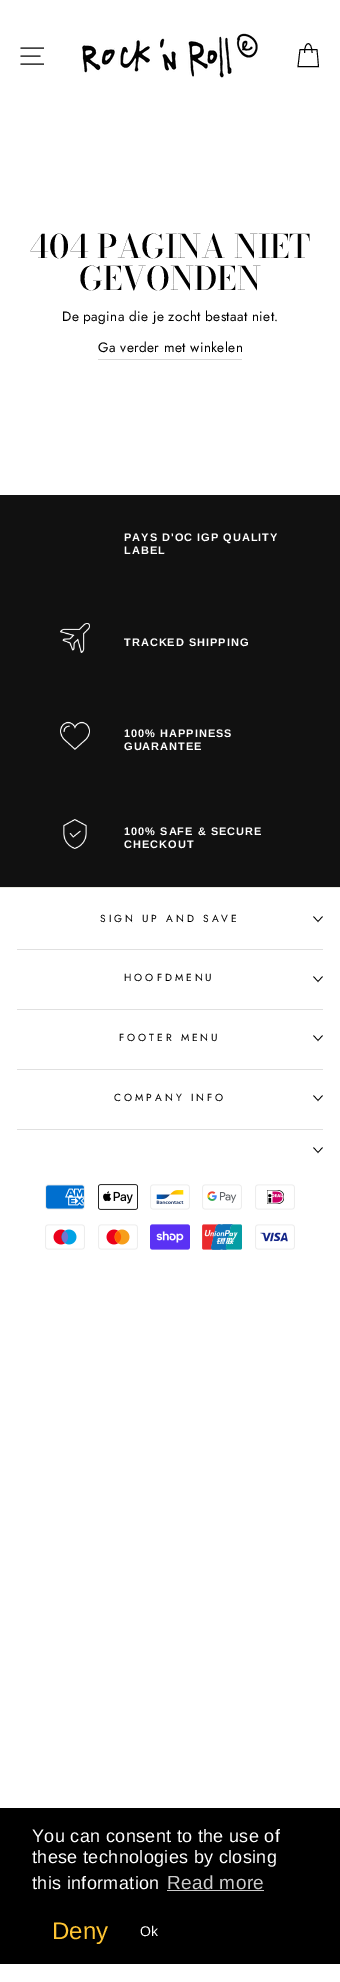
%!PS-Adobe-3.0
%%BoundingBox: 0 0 340 1982
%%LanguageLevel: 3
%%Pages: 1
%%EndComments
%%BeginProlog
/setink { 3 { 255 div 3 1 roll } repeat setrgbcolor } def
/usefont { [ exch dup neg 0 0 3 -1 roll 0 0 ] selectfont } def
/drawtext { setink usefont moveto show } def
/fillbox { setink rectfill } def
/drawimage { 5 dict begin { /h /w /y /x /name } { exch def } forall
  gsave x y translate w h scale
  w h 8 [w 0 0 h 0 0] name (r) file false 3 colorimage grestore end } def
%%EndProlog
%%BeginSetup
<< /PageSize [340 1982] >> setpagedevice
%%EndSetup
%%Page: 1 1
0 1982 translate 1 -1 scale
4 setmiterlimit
0 0 340 1982 255 255 255 fillbox
0 0 0 setink
0.9 setlinewidth
20.5 48 moveto 44 48 lineto 20.5 56 moveto 40.5 56 lineto 20.5 64 moveto 44 64 lineto stroke
(assets/img1.rgb) 82 33 176 45 drawimage
304.5 53 moveto 304.5 40.5 312 40.5 312 53 curveto 300 49.5 moveto 317 49.5 lineto 318.5 66.5 lineto 298 66.5 lineto closepath stroke
(404 PAGINA NIET) 29 258 /BodoniModa-Medium 32.25 0 0 0 drawtext
(GEVONDEN) 79 290 /BodoniModa-Medium 32.25 0 0 0 drawtext
/Jost-Regular 13.6 usefont
62 321 moveto 0.35 0 (De pagina die je zocht bestaat niet.) ashow
98 359 144 1 217 217 217 fillbox
0 0 0 setink
98 352 moveto 0.35 0 (Ga verder met winkelen) ashow
0 495 340 392 17 17 17 fillbox
/LiberationSans-Bold 11 usefont
255 255 255 setink
124 541 moveto 1 0 (PAYS D'OC IGP QUALITY) ashow
124 554 moveto 1 0 (LABEL) ashow
(assets/img2.rgb) 60 623 30 30 drawimage
124 646 moveto 1 0 (TRACKED SHIPPING) ashow
(assets/img3.rgb) 60 721 30 29 drawimage
124 737 moveto 1 0 (100% HAPPINESS) ashow
124 750 moveto 1 0 (GUARANTEE) ashow
(assets/img4.rgb) 63 819 24 30 drawimage
124 835 moveto 1 0 (100% SAFE & SECURE) ashow
124 848 moveto 1 0 (CHECKOUT) ashow
0 887 340 1 232 232 225 fillbox
/Jost-Regular 10.25 usefont
0 0 0 setink
100 922 moveto 3 0 (SIGN UP AND SAVE) ashow
0.7 setlinewidth
313.5 916.5 moveto 318 921.5 lineto 322.5 916.5 lineto stroke
17 949 306 1 224 224 224 fillbox
0 0 0 setink
124 981 moveto 3 0 (HOOFDMENU) ashow
313.5 976.5 moveto 318 981.5 lineto 322.5 976.5 lineto stroke
17 1009 306 1 224 224 224 fillbox
0 0 0 setink
119 1041 moveto 3 0 (FOOTER MENU) ashow
313.5 1035.5 moveto 318 1040.5 lineto 322.5 1035.5 lineto stroke
17 1069 306 1 224 224 224 fillbox
0 0 0 setink
114 1101 moveto 3 0 (COMPANY INFO) ashow
313.5 1095.5 moveto 318 1100.5 lineto 322.5 1095.5 lineto stroke
17 1129 306 1 224 224 224 fillbox
0 0 0 setink
313.5 1147.5 moveto 318 1152.5 lineto 322.5 1147.5 lineto stroke
(assets/img5.rgb) 45 1184 40 26 drawimage
(assets/img6.rgb) 98 1184 40 26 drawimage
(assets/img7.rgb) 150 1184 40 26 drawimage
(assets/img8.rgb) 202 1184 40 26 drawimage
(assets/img9.rgb) 255 1184 40 26 drawimage
(assets/img10.rgb) 45 1224 40 26 drawimage
(assets/img11.rgb) 98 1224 40 26 drawimage
(assets/img12.rgb) 150 1224 40 26 drawimage
(assets/img13.rgb) 202 1224 40 26 drawimage
(assets/img14.rgb) 255 1224 40 26 drawimage
0 1808 340 156 0 0 0 fillbox
/LiberationSans-Regular 18 usefont
255 255 255 setink
32 1842 moveto 0.35 0 (You can consent to the use of) ashow
32 1863 moveto 0.35 0 (these technologies by closing) ashow
32 1889 moveto 0.35 0 (this information) ashow
/LiberationSans-Regular 19 usefont
204 204 204 setink
167 1889 moveto 0.35 0 (Read more) ashow
167 1890 97 1 204 204 204 fillbox
(Deny) 52 1939 /LiberationSans-Regular 24 255 197 51 drawtext
/LiberationSans-Regular 14 usefont
255 255 255 setink
140 1936 moveto 0.35 0 (Ok) ashow
showpage
%%EOF
